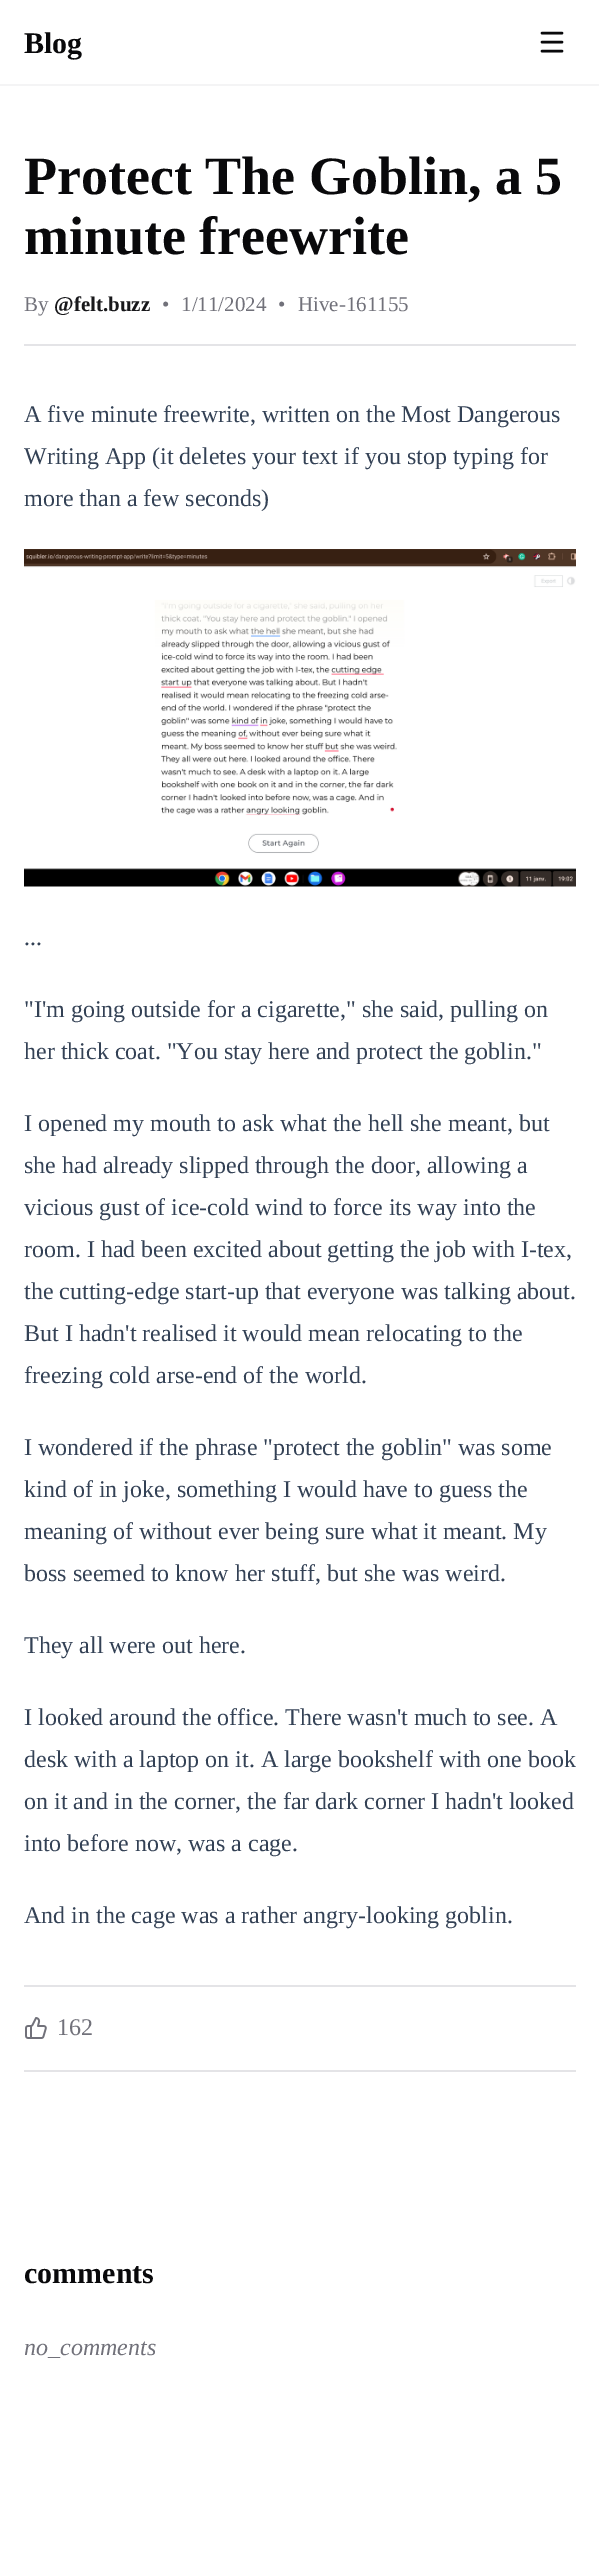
%!PS-Adobe-3.0
%%BoundingBox: 0 0 599 2574
%%LanguageLevel: 3
%%Pages: 1
%%EndComments
%%BeginProlog
/setink { 3 { 255 div 3 1 roll } repeat setrgbcolor } def
/usefont { [ exch dup neg 0 0 3 -1 roll 0 0 ] selectfont } def
/drawtext { setink usefont moveto show } def
/fillbox { setink rectfill } def
/drawimage { 5 dict begin { /h /w /y /x /name } { exch def } forall
  gsave x y translate w h scale
  w h 8 [w 0 0 h 0 0] name (r) file false 3 colorimage grestore end } def
%%EndProlog
%%BeginSetup
<< /PageSize [599 2574] >> setpagedevice
%%EndSetup
%%Page: 1 1
0 2574 translate 1 -1 scale
4 setmiterlimit
0 0 599 2574 255 255 255 fillbox
0 84 599 2 244 244 245 fillbox
(Blog) 24 53 /LiberationSerif-Bold 30 9 9 11 drawtext
2.5 setlinewidth
1 setlinecap
1 setlinejoin
542 33 moveto 562 33 lineto 542 42 moveto 562 42 lineto 542 51 moveto 562 51 lineto stroke
(Protect The Goblin, a 5) 24 194 /LiberationSerif-Bold 54 9 9 11 drawtext
(minute freewrite) 24 254 /LiberationSerif-Bold 54 9 9 11 drawtext
24 344 552 2 228 228 231 fillbox
(By) 24 311 /LiberationSerif-Regular 21 113 113 122 drawtext
(@felt.buzz) 54 311 /LiberationSerif-Bold 21 24 24 27 drawtext
(•) 162 311 /LiberationSerif-Regular 21 113 113 122 drawtext
(1/11/2024) 181 311 /LiberationSerif-Regular 21 113 113 122 drawtext
(•) 278 311 /LiberationSerif-Regular 21 113 113 122 drawtext
(Hive-161155) 298 311 /LiberationSerif-Regular 21 113 113 122 drawtext
(A five minute freewrite, written on the Most Dangerous) 24 422 /LiberationSerif-Regular 24 51 65 85 drawtext
(Writing App \(it deletes your text if you stop typing for) 24 464 /LiberationSerif-Regular 24 51 65 85 drawtext
(more than a few seconds\)) 24 506 /LiberationSerif-Regular 24 51 65 85 drawtext
(assets/img1.rgb) 24 549 552 338 drawimage
(...) 24 945 /LiberationSerif-Regular 24 51 65 85 drawtext
("I'm going outside for a cigarette," she said, pulling on) 24 1017 /LiberationSerif-Regular 24 51 65 85 drawtext
(her thick coat. "You stay here and protect the goblin.") 24 1059 /LiberationSerif-Regular 24 51 65 85 drawtext
(I opened my mouth to ask what the hell she meant, but) 24 1131 /LiberationSerif-Regular 24 51 65 85 drawtext
(she had already slipped through the door, allowing a) 24 1173 /LiberationSerif-Regular 24 51 65 85 drawtext
(vicious gust of ice-cold wind to force its way into the) 24 1215 /LiberationSerif-Regular 24 51 65 85 drawtext
(room. I had been excited about getting the job with I-tex,) 24 1257 /LiberationSerif-Regular 24 51 65 85 drawtext
(the cutting-edge start-up that everyone was talking about.) 24 1299 /LiberationSerif-Regular 24 51 65 85 drawtext
(But I hadn't realised it would mean relocating to the) 24 1341 /LiberationSerif-Regular 24 51 65 85 drawtext
(freezing cold arse-end of the world.) 24 1383 /LiberationSerif-Regular 24 51 65 85 drawtext
(I wondered if the phrase "protect the goblin" was some) 24 1455 /LiberationSerif-Regular 24 51 65 85 drawtext
(kind of in joke, something I would have to guess the) 24 1497 /LiberationSerif-Regular 24 51 65 85 drawtext
(meaning of without ever being sure what it meant. My) 24 1539 /LiberationSerif-Regular 24 51 65 85 drawtext
(boss seemed to know her stuff, but she was weird.) 24 1581 /LiberationSerif-Regular 24 51 65 85 drawtext
(They all were out here.) 24 1653 /LiberationSerif-Regular 24 51 65 85 drawtext
(I looked around the office. There wasn't much to see. A) 24 1725 /LiberationSerif-Regular 24 51 65 85 drawtext
(desk with a laptop on it. A large bookshelf with one book) 24 1767 /LiberationSerif-Regular 24 51 65 85 drawtext
(on it and in the corner, the far dark corner I hadn't looked) 24 1809 /LiberationSerif-Regular 24 51 65 85 drawtext
(into before now, was a cage.) 24 1851 /LiberationSerif-Regular 24 51 65 85 drawtext
(And in the cage was a rather angry-looking goblin.) 24 1923 /LiberationSerif-Regular 24 51 65 85 drawtext
24 1985 552 2 228 228 231 fillbox
24 2070 552 2 228 228 231 fillbox
(assets/img2.rgb) 25 2017 22 22 drawimage
(162) 57 2035 /LiberationSerif-Regular 24 113 113 122 drawtext
(comments) 24 2283 /LiberationSerif-Bold 30 9 9 11 drawtext
(no_comments) 24 2355 /LiberationSerif-Italic 24 113 113 122 drawtext
showpage
%%EOF
